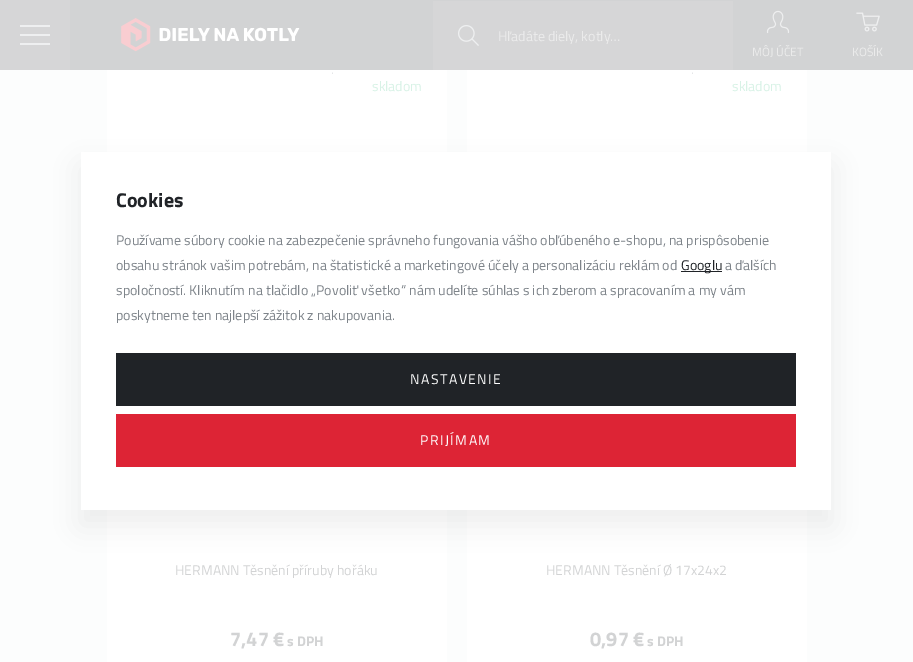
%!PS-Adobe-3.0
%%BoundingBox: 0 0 913 662
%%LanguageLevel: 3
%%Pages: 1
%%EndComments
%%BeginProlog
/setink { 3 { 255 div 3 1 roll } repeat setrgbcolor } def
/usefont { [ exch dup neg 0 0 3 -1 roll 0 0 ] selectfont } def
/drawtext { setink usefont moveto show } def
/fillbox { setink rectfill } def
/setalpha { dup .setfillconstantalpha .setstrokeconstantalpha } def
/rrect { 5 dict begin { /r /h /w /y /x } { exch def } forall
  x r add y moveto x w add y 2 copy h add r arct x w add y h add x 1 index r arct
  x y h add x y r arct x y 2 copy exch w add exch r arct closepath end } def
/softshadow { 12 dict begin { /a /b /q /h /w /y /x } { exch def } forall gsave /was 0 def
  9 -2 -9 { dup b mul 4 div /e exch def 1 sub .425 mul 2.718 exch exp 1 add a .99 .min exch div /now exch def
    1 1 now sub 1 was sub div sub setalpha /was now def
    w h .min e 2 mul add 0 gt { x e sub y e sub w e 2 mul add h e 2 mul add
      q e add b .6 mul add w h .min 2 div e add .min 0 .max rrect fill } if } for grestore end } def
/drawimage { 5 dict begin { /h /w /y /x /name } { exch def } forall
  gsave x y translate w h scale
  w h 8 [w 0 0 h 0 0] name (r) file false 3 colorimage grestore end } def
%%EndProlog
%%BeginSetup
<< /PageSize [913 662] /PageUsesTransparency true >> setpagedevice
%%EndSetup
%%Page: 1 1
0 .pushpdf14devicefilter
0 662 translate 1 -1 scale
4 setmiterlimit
0 0 913 662 252 253 253 fillbox
70 0 843 70 210 211 212 fillbox
0 0 70 70 214 214 215 fillbox
20 34 30 2 238 239 240 fillbox
20 25 30 2 238 239 240 fillbox
20 43 30 2 238 239 240 fillbox
(assets/img1.rgb) 121 18 179 34 drawimage
433 1 300 69 214 214 215 fillbox
(assets/img2.rgb) 458 25 21 21 drawimage
(Hľadáte diely, kotly…) 498 41 /TitilliumWeb-Regular 14 235 235 235 drawtext
(assets/img3.rgb) 766 10 24 24 drawimage
(MÔJ ÚČET) 752 56 /TitilliumWeb-Regular 12 235 235 235 drawtext
(assets/img4.rgb) 856 12 24 20 drawimage
(KOŠÍK) 852 56 /TitilliumWeb-Regular 12 235 235 235 drawtext
107 70 340 82 255 255 255 fillbox
(.) 331 74 /TitilliumWeb-Regular 14 229 230 232 drawtext
(skladom) 372 91 /TitilliumWeb-Regular 14 216 242 230 drawtext
467 70 340 82 255 255 255 fillbox
(.) 691 74 /TitilliumWeb-Regular 14 229 230 232 drawtext
(skladom) 732 91 /TitilliumWeb-Regular 14 216 242 230 drawtext
107 510 340 152 255 255 255 fillbox
(HERMANN Těsnění příruby hořáku) 175 575 /TitilliumWeb-Regular 14 210 211 212 drawtext
(7,47 €) 230 646 /TitilliumWeb-Bold 20 210 211 212 drawtext
(s DPH) 287 646 /TitilliumWeb-Bold 14 210 211 212 drawtext
467 510 340 152 255 255 255 fillbox
(HERMANN Těsnění Ø 17x24x2) 546 575 /TitilliumWeb-Regular 14 210 211 212 drawtext
(0,97 €) 590 646 /TitilliumWeb-Bold 20 210 211 212 drawtext
(s DPH) 647 646 /TitilliumWeb-Bold 14 210 211 212 drawtext
40 44 48 setink
81 167 750 358 0 12.5 0.08 softshadow
81 152 750 358 255 255 255 fillbox
(Cookies) 116 207 /TitilliumWeb-Bold 20 32 35 39 drawtext
(Používame súbory cookie na zabezpečenie správneho fungovania vášho obľúbeného e-shopu, na prispôsobenie) 116 245 /TitilliumWeb-Regular 14 126 132 138 drawtext
(obsahu stránok vašim potrebám, na štatistické a marketingové účely a personalizáciu reklám od) 116 270 /TitilliumWeb-Regular 14 126 132 138 drawtext
681 271 41 1 32 35 39 fillbox
(Googlu) 681 270 /TitilliumWeb-Regular 14 32 35 39 drawtext
(a ďalších) 725 270 /TitilliumWeb-Regular 14 126 132 138 drawtext
(spoločností. Kliknutím na tlačidlo „Povoliť všetko“ nám udelíte súhlas s ich zberom a spracovaním a my vám) 116 295 /TitilliumWeb-Regular 14 126 132 138 drawtext
(poskytneme ten najlepší zážitok z nakupovania.) 116 320 /TitilliumWeb-Regular 14 126 132 138 drawtext
116 353 680 53 32 35 39 fillbox
255 255 255 setink
410 384 moveto 1.5 0 (NASTAVENIE) ashow
116 414 680 53 221 36 53 fillbox
255 255 255 setink
420 445 moveto 1.5 0 (PRIJÍMAM) ashow
.poppdf14devicefilter showpage
%%EOF
